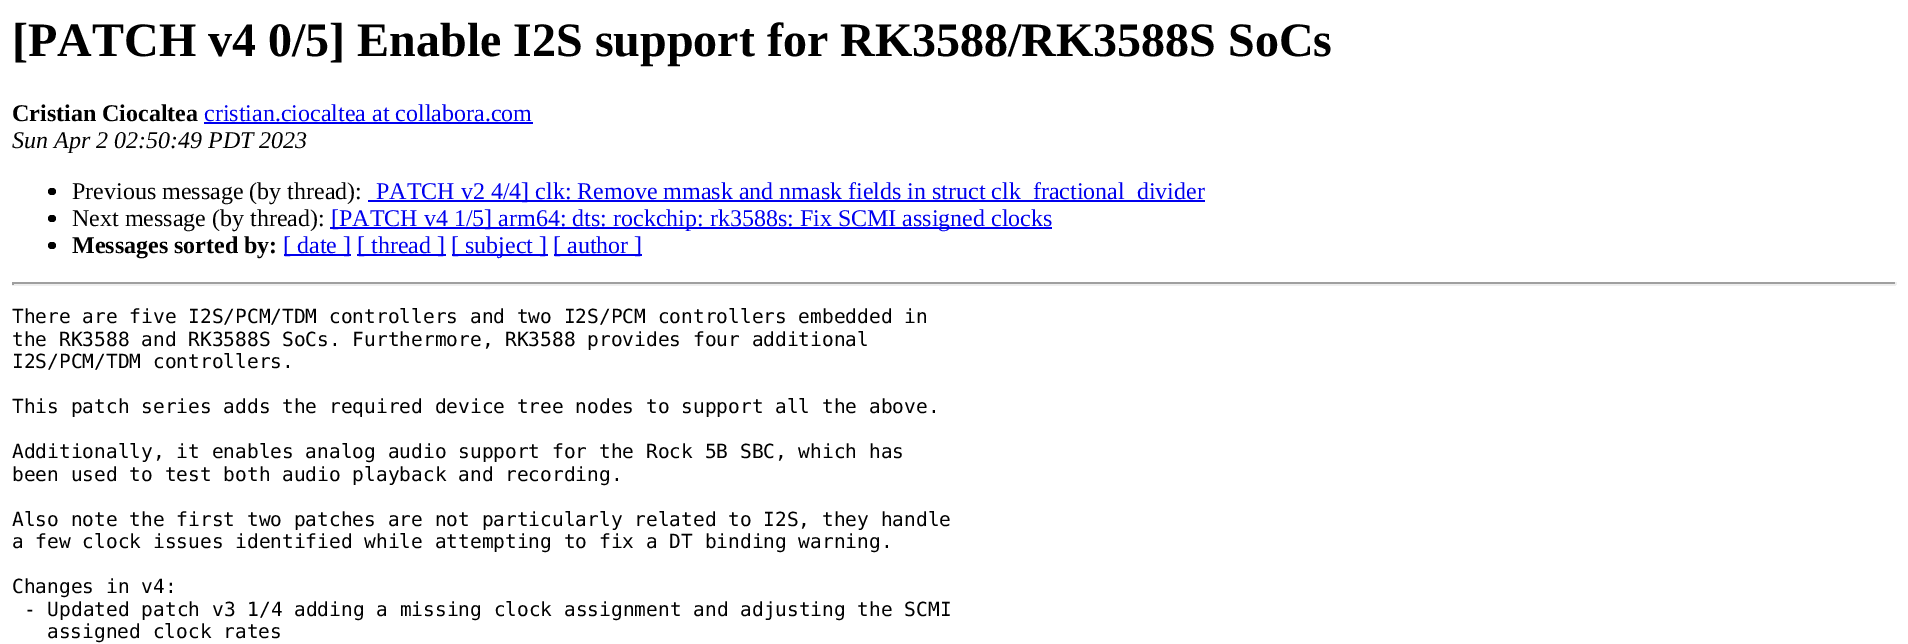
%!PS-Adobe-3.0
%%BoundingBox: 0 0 1908 644
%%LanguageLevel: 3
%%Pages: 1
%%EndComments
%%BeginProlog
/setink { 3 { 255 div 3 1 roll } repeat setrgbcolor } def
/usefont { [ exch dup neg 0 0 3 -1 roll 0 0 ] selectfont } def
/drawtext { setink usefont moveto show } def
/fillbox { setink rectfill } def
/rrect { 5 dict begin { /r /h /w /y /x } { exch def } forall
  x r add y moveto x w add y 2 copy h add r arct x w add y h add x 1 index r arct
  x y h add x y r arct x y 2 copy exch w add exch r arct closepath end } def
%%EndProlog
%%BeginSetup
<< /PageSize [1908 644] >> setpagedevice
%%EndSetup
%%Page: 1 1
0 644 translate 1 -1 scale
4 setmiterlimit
0 0 1908 644 255 255 255 fillbox
([PATCH v4 0/5] Enable I2S support for RK3588/RK3588S SoCs) 12 56 /LiberationSerif-Bold 48 0 0 0 drawtext
(Cristian Ciocaltea) 12 121 /LiberationSerif-Bold 24 0 0 0 drawtext
(cristian.ciocaltea at collabora.com) 204 121 /LiberationSerif-Regular 24 0 0 238 drawtext
204 122 329 2 0 0 238 fillbox
(Sun Apr 2 02:50:49 PDT 2023) 12 148 /LiberationSerif-Italic 24 0 0 0 drawtext
48 188 8 7 3.5 rrect fill
(Previous message \(by thread\):) 72 199 /LiberationSerif-Regular 24 0 0 0 drawtext
368 200 837 2 0 0 238 fillbox
(PATCH v2 4/4] clk: Remove mmask and nmask fields in struct clk_fractional_divider) 376 199 /LiberationSerif-Regular 24 0 0 238 drawtext
0 0 0 setink
48 215 8 7 3.5 rrect fill
(Next message \(by thread\):) 72 226 /LiberationSerif-Regular 24 0 0 0 drawtext
330 227 722 2 0 0 238 fillbox
([PATCH v4 1/5] arm64: dts: rockchip: rk3588s: Fix SCMI assigned clocks) 331 226 /LiberationSerif-Regular 24 0 0 238 drawtext
0 0 0 setink
48 242 8 7 3.5 rrect fill
(Messages sorted by:) 72 253 /LiberationSerif-Bold 24 0 0 0 drawtext
284 254 67 2 0 0 238 fillbox
([ date ]) 283 253 /LiberationSerif-Regular 24 0 0 238 drawtext
357 254 89 2 0 0 238 fillbox
([ thread ]) 357 253 /LiberationSerif-Regular 24 0 0 238 drawtext
452 254 96 2 0 0 238 fillbox
([ subject ]) 451 253 /LiberationSerif-Regular 24 0 0 238 drawtext
554 254 88 2 0 0 238 fillbox
([ author ]) 553 253 /LiberationSerif-Regular 24 0 0 238 drawtext
12 282 1884 2 159 159 159 fillbox
1895 282 2 3 238 238 238 fillbox
12 284 1884 2 238 238 238 fillbox
12 282 2 3 159 159 159 fillbox
(There are five I2S/PCM/TDM controllers and two I2S/PCM controllers embedded in) 12 323 /DejaVuSansMono-Regular 19.5 0 0 0 drawtext
(the RK3588 and RK3588S SoCs. Furthermore, RK3588 provides four additional) 12 346 /DejaVuSansMono-Regular 19.5 0 0 0 drawtext
(I2S/PCM/TDM controllers.) 12 368 /DejaVuSansMono-Regular 19.5 0 0 0 drawtext
(This patch series adds the required device tree nodes to support all the above.) 12 413 /DejaVuSansMono-Regular 19.5 0 0 0 drawtext
(Additionally, it enables analog audio support for the Rock 5B SBC, which has) 12 458 /DejaVuSansMono-Regular 19.5 0 0 0 drawtext
(been used to test both audio playback and recording.) 12 481 /DejaVuSansMono-Regular 19.5 0 0 0 drawtext
(Also note the first two patches are not particularly related to I2S, they handle) 12 526 /DejaVuSansMono-Regular 19.5 0 0 0 drawtext
(a few clock issues identified while attempting to fix a DT binding warning.) 12 548 /DejaVuSansMono-Regular 19.5 0 0 0 drawtext
(Changes in v4:) 12 593 /DejaVuSansMono-Regular 19.5 0 0 0 drawtext
(- Updated patch v3 1/4 adding a missing clock assignment and adjusting the SCMI) 24 616 /DejaVuSansMono-Regular 19.5 0 0 0 drawtext
(assigned clock rates) 47 638 /DejaVuSansMono-Regular 19.5 0 0 0 drawtext
showpage
%%EOF
